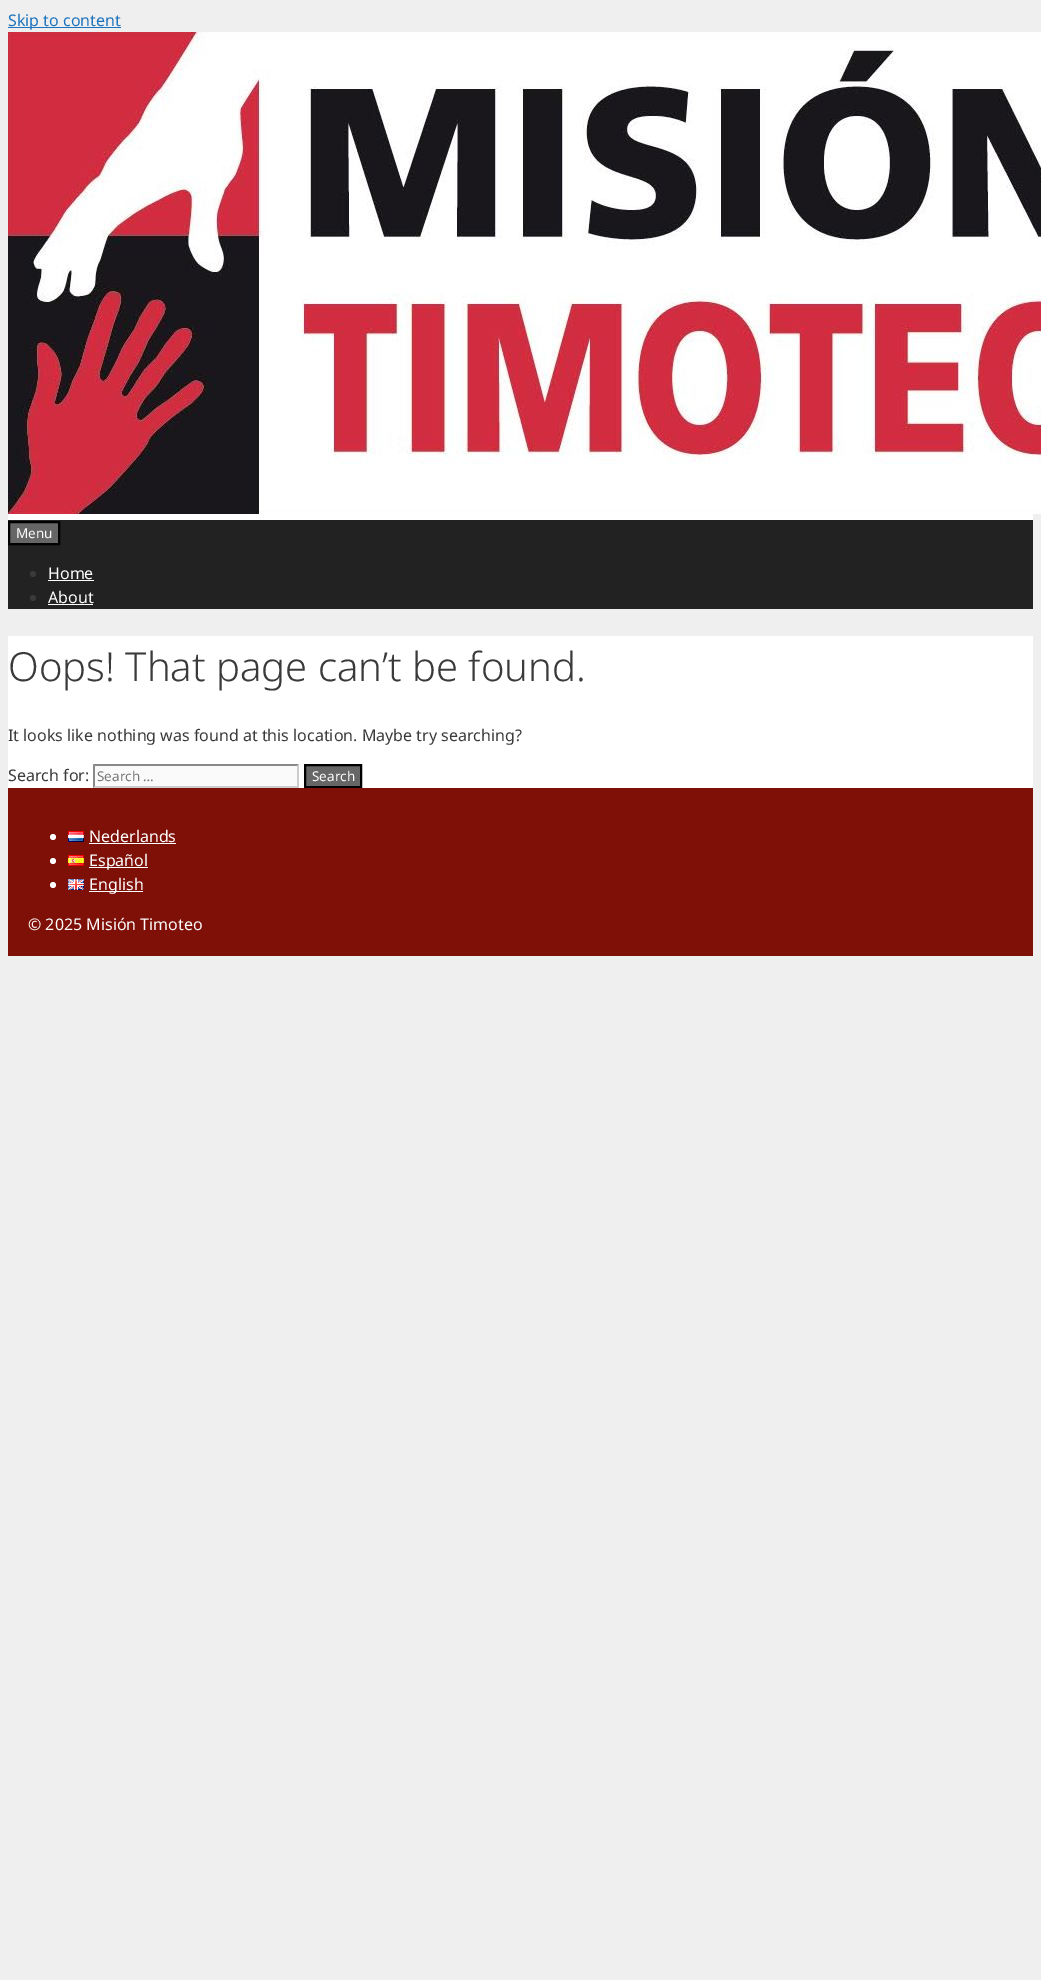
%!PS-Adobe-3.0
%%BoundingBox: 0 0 1041 1980
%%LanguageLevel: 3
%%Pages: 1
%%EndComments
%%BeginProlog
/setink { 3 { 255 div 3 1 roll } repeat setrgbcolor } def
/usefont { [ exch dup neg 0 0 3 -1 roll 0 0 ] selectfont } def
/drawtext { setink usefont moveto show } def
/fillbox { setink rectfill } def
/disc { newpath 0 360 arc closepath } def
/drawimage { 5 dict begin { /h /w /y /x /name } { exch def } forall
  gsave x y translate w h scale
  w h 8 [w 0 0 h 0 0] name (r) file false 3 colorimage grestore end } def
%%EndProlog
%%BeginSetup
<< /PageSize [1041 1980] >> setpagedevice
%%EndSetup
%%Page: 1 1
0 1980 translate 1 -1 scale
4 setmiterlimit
0 0 1041 1980 239 239 239 fillbox
8 27 113 1 30 115 190 fillbox
(Skip to content) 8 26 /NotoSans-Regular 16 30 115 190 drawtext
8 514 1025 6 255 255 255 fillbox
(assets/img1.rgb) 8 32 1033 482 drawimage
8 520 1025 89 34 34 34 fillbox
102 102 102 setink
9 522 moveto 59 522 lineto 59 544 lineto 9 544 lineto closepath gsave fill grestore
0 0 0 setink
2 setlinewidth
stroke
(Menu) 16 538 /NotoSans-Regular 13.5 255 255 255 drawtext
58 58 58 setink
33 574 3 disc fill
(Home) 48 579 /NotoSans-Regular 16 255 255 255 drawtext
48 580 46 1 255 255 255 fillbox
58 58 58 setink
33 598 3 disc fill
(About) 48 603 /NotoSans-Regular 16 255 255 255 drawtext
48 604 45 1 255 255 255 fillbox
8 636 1025 152 255 255 255 fillbox
(Oops! That page can’t be found.) 8 681 /NotoSans-Light 40 58 58 58 drawtext
(It looks like nothing was found at this location. Maybe try searching?) 8 741 /NotoSans-Regular 16 58 58 58 drawtext
(Search for:) 8 781 /NotoSans-Regular 16 58 58 58 drawtext
93 764 206 24 250 250 250 fillbox
136 136 136 setink
93 764 moveto 299 764 lineto 297 766 lineto 95 766 lineto closepath fill
204 204 204 setink
299 764 moveto 299 788 lineto 297 786 lineto 297 766 lineto closepath fill
299 788 moveto 93 788 lineto 95 786 lineto 297 786 lineto closepath fill
136 136 136 setink
93 788 moveto 93 764 lineto 95 766 lineto 95 786 lineto closepath fill
(Search …) 97 781 /NotoSans-Regular 13.5 117 117 117 drawtext
102 102 102 setink
305 765 moveto 361 765 lineto 361 787 lineto 305 787 lineto closepath gsave fill grestore
0 0 0 setink
stroke
(Search) 312 781 /NotoSans-Regular 13.5 255 255 255 drawtext
8 788 1025 168 126 16 7 fillbox
255 255 255 setink
53 837 3 disc fill
(assets/img2.rgb) 68 831 16 11 drawimage
(Nederlands) 89 842 /NotoSans-Regular 16 255 255 255 drawtext
89 843 87 1 255 255 255 fillbox
53 861 3 disc fill
(assets/img3.rgb) 68 855 16 11 drawimage
89 867 59 1 255 255 255 fillbox
(Español) 89 866 /NotoSans-Regular 16 255 255 255 drawtext
53 885 3 disc fill
(assets/img4.rgb) 68 879 16 11 drawimage
89 891 54 1 255 255 255 fillbox
(English) 89 890 /NotoSans-Regular 16 255 255 255 drawtext
(© 2025 Misión Timoteo) 28 930 /NotoSans-Regular 16 255 255 255 drawtext
showpage
%%EOF
